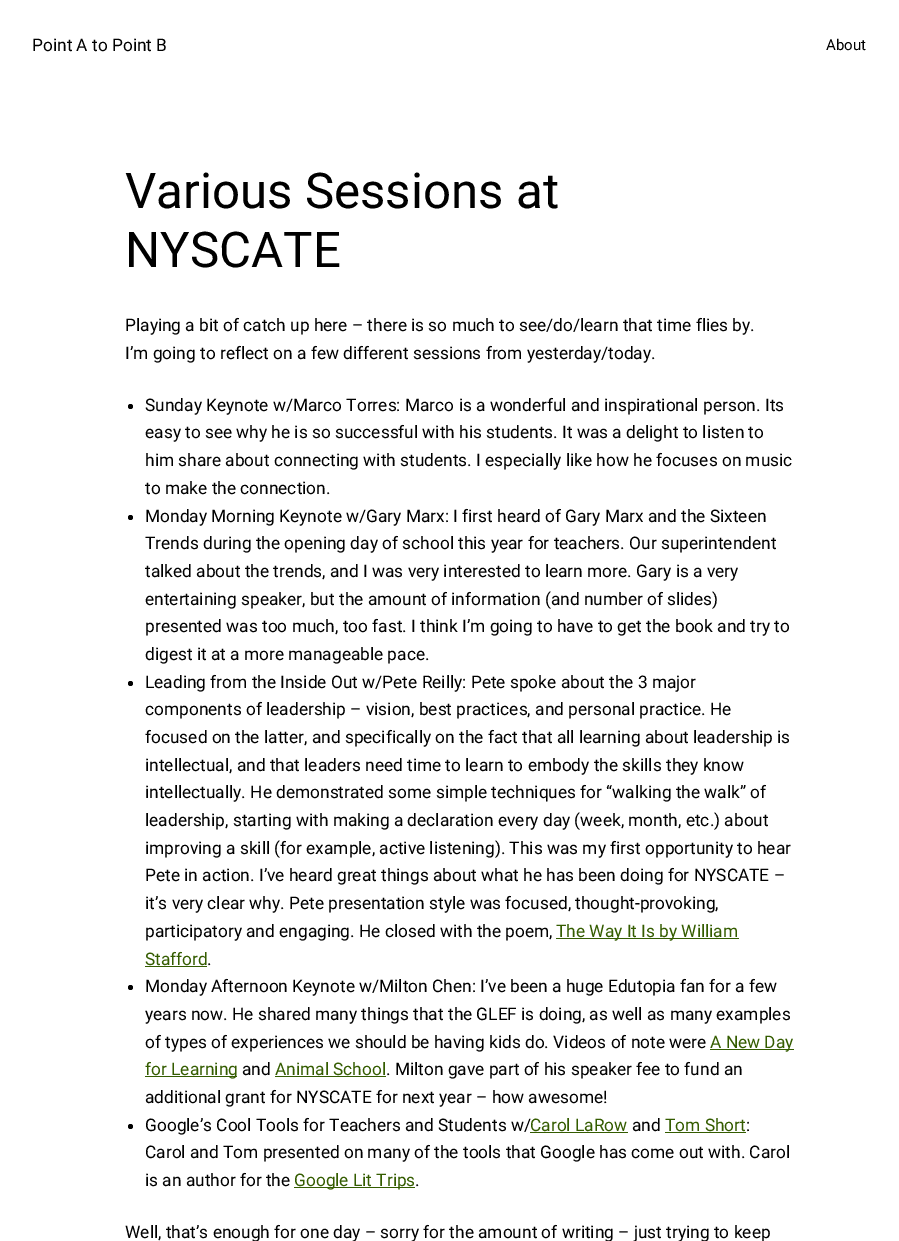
%!PS-Adobe-3.0
%%BoundingBox: 0 0 899 1241
%%LanguageLevel: 3
%%Pages: 1
%%EndComments
%%BeginProlog
/setink { 3 { 255 div 3 1 roll } repeat setrgbcolor } def
/usefont { [ exch dup neg 0 0 3 -1 roll 0 0 ] selectfont } def
/drawtext { setink usefont moveto show } def
/fillbox { setink rectfill } def
/disc { newpath 0 360 arc closepath } def
%%EndProlog
%%BeginSetup
<< /PageSize [899 1241] >> setpagedevice
%%EndSetup
%%Page: 1 1
0 1241 translate 1 -1 scale
4 setmiterlimit
0 0 899 1241 255 255 255 fillbox
(Point A to Point B) 32 51 /Roboto-Regular 17.3 0 0 0 drawtext
(About) 826 50 /Roboto-Regular 15 0 0 0 drawtext
(Various Sessions at) 125 208 /Roboto-Regular 49.25 0 0 0 drawtext
(NYSCATE) 125 267 /Roboto-Regular 49.25 0 0 0 drawtext
(Playing a bit of catch up here – there is so much to see/do/learn that time flies by.) 125 331 /Roboto-Regular 17.3 0 0 0 drawtext
(I’m going to reflect on a few different sessions from yesterday/today.) 125 359 /Roboto-Regular 17.3 0 0 0 drawtext
130.5 406.5 2.5 disc fill
(Sunday Keynote w/Marco Torres: Marco is a wonderful and inspirational person. Its) 145 411 /Roboto-Regular 17.3 0 0 0 drawtext
(easy to see why he is so successful with his students. It was a delight to listen to) 145 438 /Roboto-Regular 17.3 0 0 0 drawtext
(him share about connecting with students. I especially like how he focuses on music) 145 466 /Roboto-Regular 17.3 0 0 0 drawtext
(to make the connection.) 145 494 /Roboto-Regular 17.3 0 0 0 drawtext
130.5 517.5 2.5 disc fill
(Monday Morning Keynote w/Gary Marx: I first heard of Gary Marx and the Sixteen) 145 522 /Roboto-Regular 17.3 0 0 0 drawtext
(Trends during the opening day of school this year for teachers. Our superintendent) 145 549 /Roboto-Regular 17.3 0 0 0 drawtext
(talked about the trends, and I was very interested to learn more. Gary is a very) 145 577 /Roboto-Regular 17.3 0 0 0 drawtext
(entertaining speaker, but the amount of information \(and number of slides\)) 145 605 /Roboto-Regular 17.3 0 0 0 drawtext
(presented was too much, too fast. I think I’m going to have to get the book and try to) 145 632 /Roboto-Regular 17.3 0 0 0 drawtext
(digest it at a more manageable pace.) 145 660 /Roboto-Regular 17.3 0 0 0 drawtext
130.5 683.5 2.5 disc fill
(Leading from the Inside Out w/Pete Reilly: Pete spoke about the 3 major) 145 688 /Roboto-Regular 17.3 0 0 0 drawtext
(components of leadership – vision, best practices, and personal practice. He) 145 715 /Roboto-Regular 17.3 0 0 0 drawtext
(focused on the latter, and specifically on the fact that all learning about leadership is) 145 743 /Roboto-Regular 17.3 0 0 0 drawtext
(intellectual, and that leaders need time to learn to embody the skills they know) 145 771 /Roboto-Regular 17.3 0 0 0 drawtext
(intellectually. He demonstrated some simple techniques for “walking the walk” of) 145 798 /Roboto-Regular 17.3 0 0 0 drawtext
(leadership, starting with making a declaration every day \(week, month, etc.\) about) 145 826 /Roboto-Regular 17.3 0 0 0 drawtext
(improving a skill \(for example, active listening\). This was my first opportunity to hear) 145 854 /Roboto-Regular 17.3 0 0 0 drawtext
(Pete in action. I’ve heard great things about what he has been doing for NYSCATE –) 145 881 /Roboto-Regular 17.3 0 0 0 drawtext
(it’s very clear why. Pete presentation style was focused, thought-provoking,) 145 909 /Roboto-Regular 17.3 0 0 0 drawtext
(participatory and engaging. He closed with the poem,) 145 937 /Roboto-Regular 17.3 0 0 0 drawtext
556 938 183 1 52 92 0 fillbox
(The Way It Is by William) 556 937 /Roboto-Regular 17.3 52 92 0 drawtext
(Stafford) 145 965 /Roboto-Regular 17.3 52 92 0 drawtext
145 966 62 1 52 92 0 fillbox
(.) 207 965 /Roboto-Regular 17.3 0 0 0 drawtext
130.5 987.5 2.5 disc fill
(Monday Afternoon Keynote w/Milton Chen: I’ve been a huge Edutopia fan for a few) 145 992 /Roboto-Regular 17.3 0 0 0 drawtext
(years now. He shared many things that the GLEF is doing, as well as many examples) 145 1020 /Roboto-Regular 17.3 0 0 0 drawtext
(of types of experiences we should be having kids do. Videos of note were) 145 1048 /Roboto-Regular 17.3 0 0 0 drawtext
710 1049 84 1 52 92 0 fillbox
(A New Day) 710 1048 /Roboto-Regular 17.3 52 92 0 drawtext
145 1076 92 1 52 92 0 fillbox
(for Learning) 145 1075 /Roboto-Regular 17.3 52 92 0 drawtext
(and) 242 1075 /Roboto-Regular 17.3 0 0 0 drawtext
(Animal School) 275 1075 /Roboto-Regular 17.3 52 92 0 drawtext
275 1076 111 1 52 92 0 fillbox
(. Milton gave part of his speaker fee to fund an) 386 1075 /Roboto-Regular 17.3 0 0 0 drawtext
(additional grant for NYSCATE for next year – how awesome!) 145 1103 /Roboto-Regular 17.3 0 0 0 drawtext
130.5 1126.5 2.5 disc fill
(Google’s Cool Tools for Teachers and Students w/) 145 1131 /Roboto-Regular 17.3 0 0 0 drawtext
(Carol LaRow) 530 1131 /Roboto-Regular 17.3 52 92 0 drawtext
530 1132 98 1 52 92 0 fillbox
(and) 632 1131 /Roboto-Regular 17.3 0 0 0 drawtext
(Tom Short) 665 1131 /Roboto-Regular 17.3 52 92 0 drawtext
665 1132 81 1 52 92 0 fillbox
(:) 746 1131 /Roboto-Regular 17.3 0 0 0 drawtext
(Carol and Tom presented on many of the tools that Google has come out with. Carol) 145 1158 /Roboto-Regular 17.3 0 0 0 drawtext
(is an author for the) 145 1186 /Roboto-Regular 17.3 0 0 0 drawtext
294 1187 121 1 52 92 0 fillbox
(Google Lit Trips) 294 1186 /Roboto-Regular 17.3 52 92 0 drawtext
(.) 415 1186 /Roboto-Regular 17.3 0 0 0 drawtext
(Well, that’s enough for one day – sorry for the amount of writing – just trying to keep) 125 1238 /Roboto-Regular 17.3 0 0 0 drawtext
showpage
%%EOF
